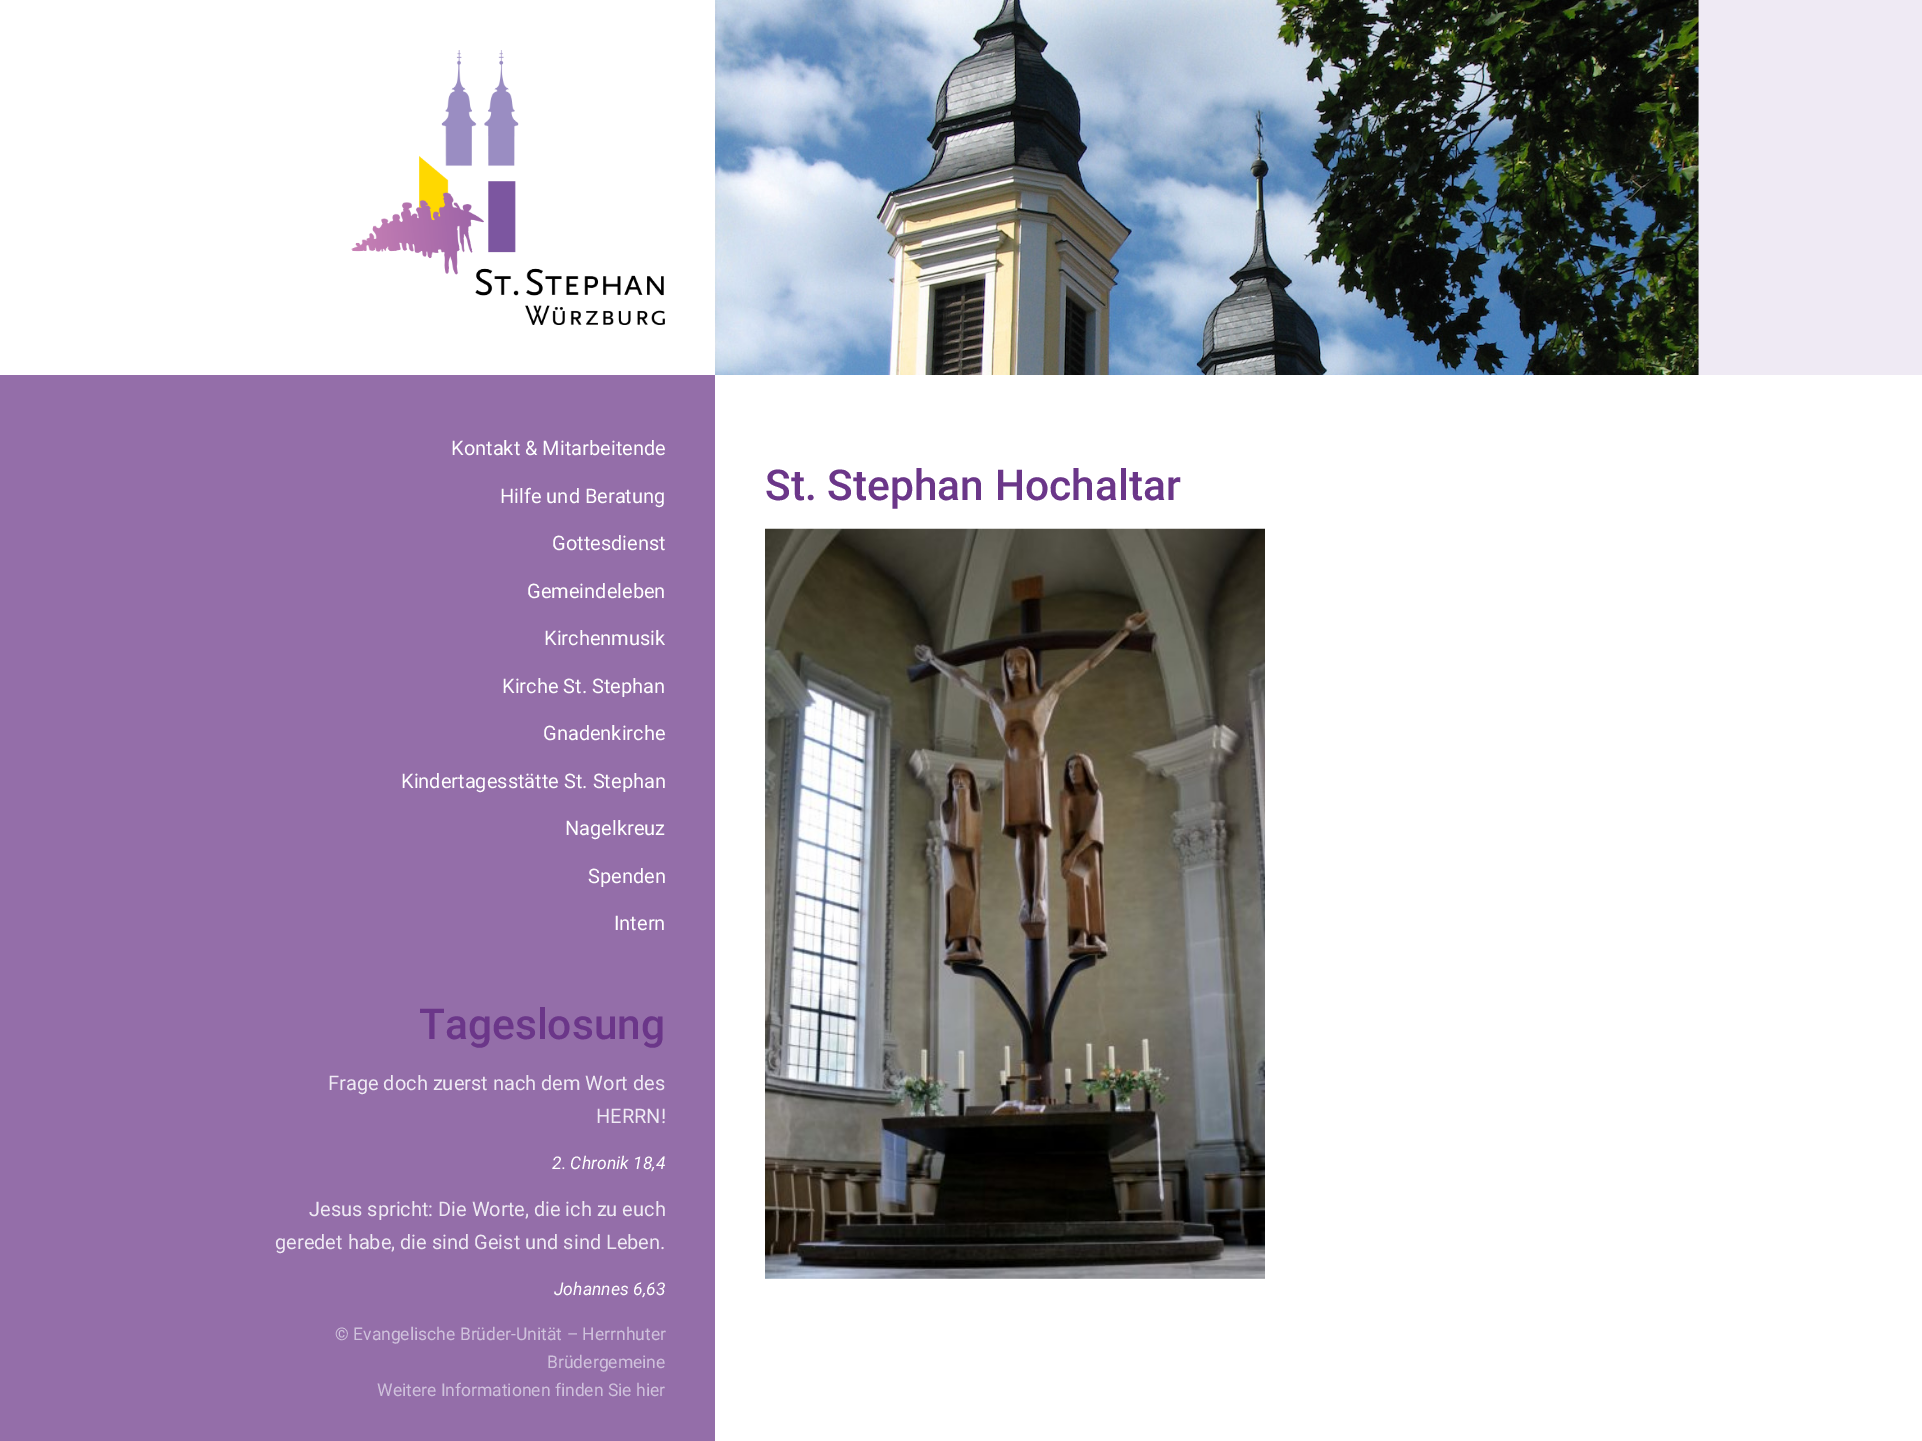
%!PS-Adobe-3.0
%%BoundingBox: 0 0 1922 1441
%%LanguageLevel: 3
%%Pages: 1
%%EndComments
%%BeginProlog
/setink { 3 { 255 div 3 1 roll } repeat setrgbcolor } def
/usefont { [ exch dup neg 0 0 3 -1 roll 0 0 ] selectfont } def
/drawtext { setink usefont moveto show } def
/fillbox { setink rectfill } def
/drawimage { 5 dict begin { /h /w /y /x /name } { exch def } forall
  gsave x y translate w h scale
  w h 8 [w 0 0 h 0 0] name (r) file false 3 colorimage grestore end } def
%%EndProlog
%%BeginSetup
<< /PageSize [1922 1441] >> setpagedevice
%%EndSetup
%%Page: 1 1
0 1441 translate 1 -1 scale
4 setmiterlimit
0 0 1922 1441 255 255 255 fillbox
1698 0 224 375 239 234 244 fillbox
(assets/img1.rgb) 351 50 314 275 drawimage
(assets/img2.rgb) 715 0 984 375 drawimage
0 375 715 1066 148 110 169 fillbox
(Kontakt & Mitarbeitende) 451 455 /Roboto-Regular 20 255 255 255 drawtext
(Hilfe und Beratung) 500 503 /Roboto-Regular 20 255 255 255 drawtext
(Gottesdienst) 552 550 /Roboto-Regular 20 255 255 255 drawtext
(Gemeindeleben) 527 598 /Roboto-Regular 20 255 255 255 drawtext
(Kirchenmusik) 544 645 /Roboto-Regular 20 255 255 255 drawtext
(Kirche St. Stephan) 502 693 /Roboto-Regular 20 255 255 255 drawtext
(Gnadenkirche) 543 740 /Roboto-Regular 20 255 255 255 drawtext
(Kindertagesstätte St. Stephan) 401 788 /Roboto-Regular 20 255 255 255 drawtext
(Nagelkreuz) 565 835 /Roboto-Regular 20 255 255 255 drawtext
(Spenden) 588 883 /Roboto-Regular 20 255 255 255 drawtext
(Intern) 614 930 /Roboto-Regular 20 255 255 255 drawtext
(Tageslosung) 419 1039 /Roboto-Medium 42.5 107 54 137 drawtext
(Frage doch zuerst nach dem Wort des) 328 1090 /Roboto-Regular 20 239 234 244 drawtext
(HERRN!) 596 1123 /Roboto-Regular 20 239 234 244 drawtext
(2. Chronik 18,4) 552 1169 /Roboto-Italic 17.5 255 255 255 drawtext
(Jesus spricht: Die Worte, die ich zu euch) 309 1216 /Roboto-Regular 20 239 234 244 drawtext
(geredet habe, die sind Geist und sind Leben.) 275 1249 /Roboto-Regular 20 239 234 244 drawtext
(Johannes 6,63) 554 1295 /Roboto-Italic 17.5 255 255 255 drawtext
(© Evangelische Brüder-Unität – Herrnhuter) 335 1340 /Roboto-Regular 17.5 207 193 220 drawtext
(Brüdergemeine) 547 1368 /Roboto-Regular 17.5 207 193 220 drawtext
(Weitere Informationen finden Sie hier) 377 1396 /Roboto-Regular 17.5 207 193 220 drawtext
(St. Stephan Hochaltar) 765 500 /Roboto-Medium 42.5 107 54 137 drawtext
(assets/img3.rgb) 765 528 500 751 drawimage
showpage
%%EOF
